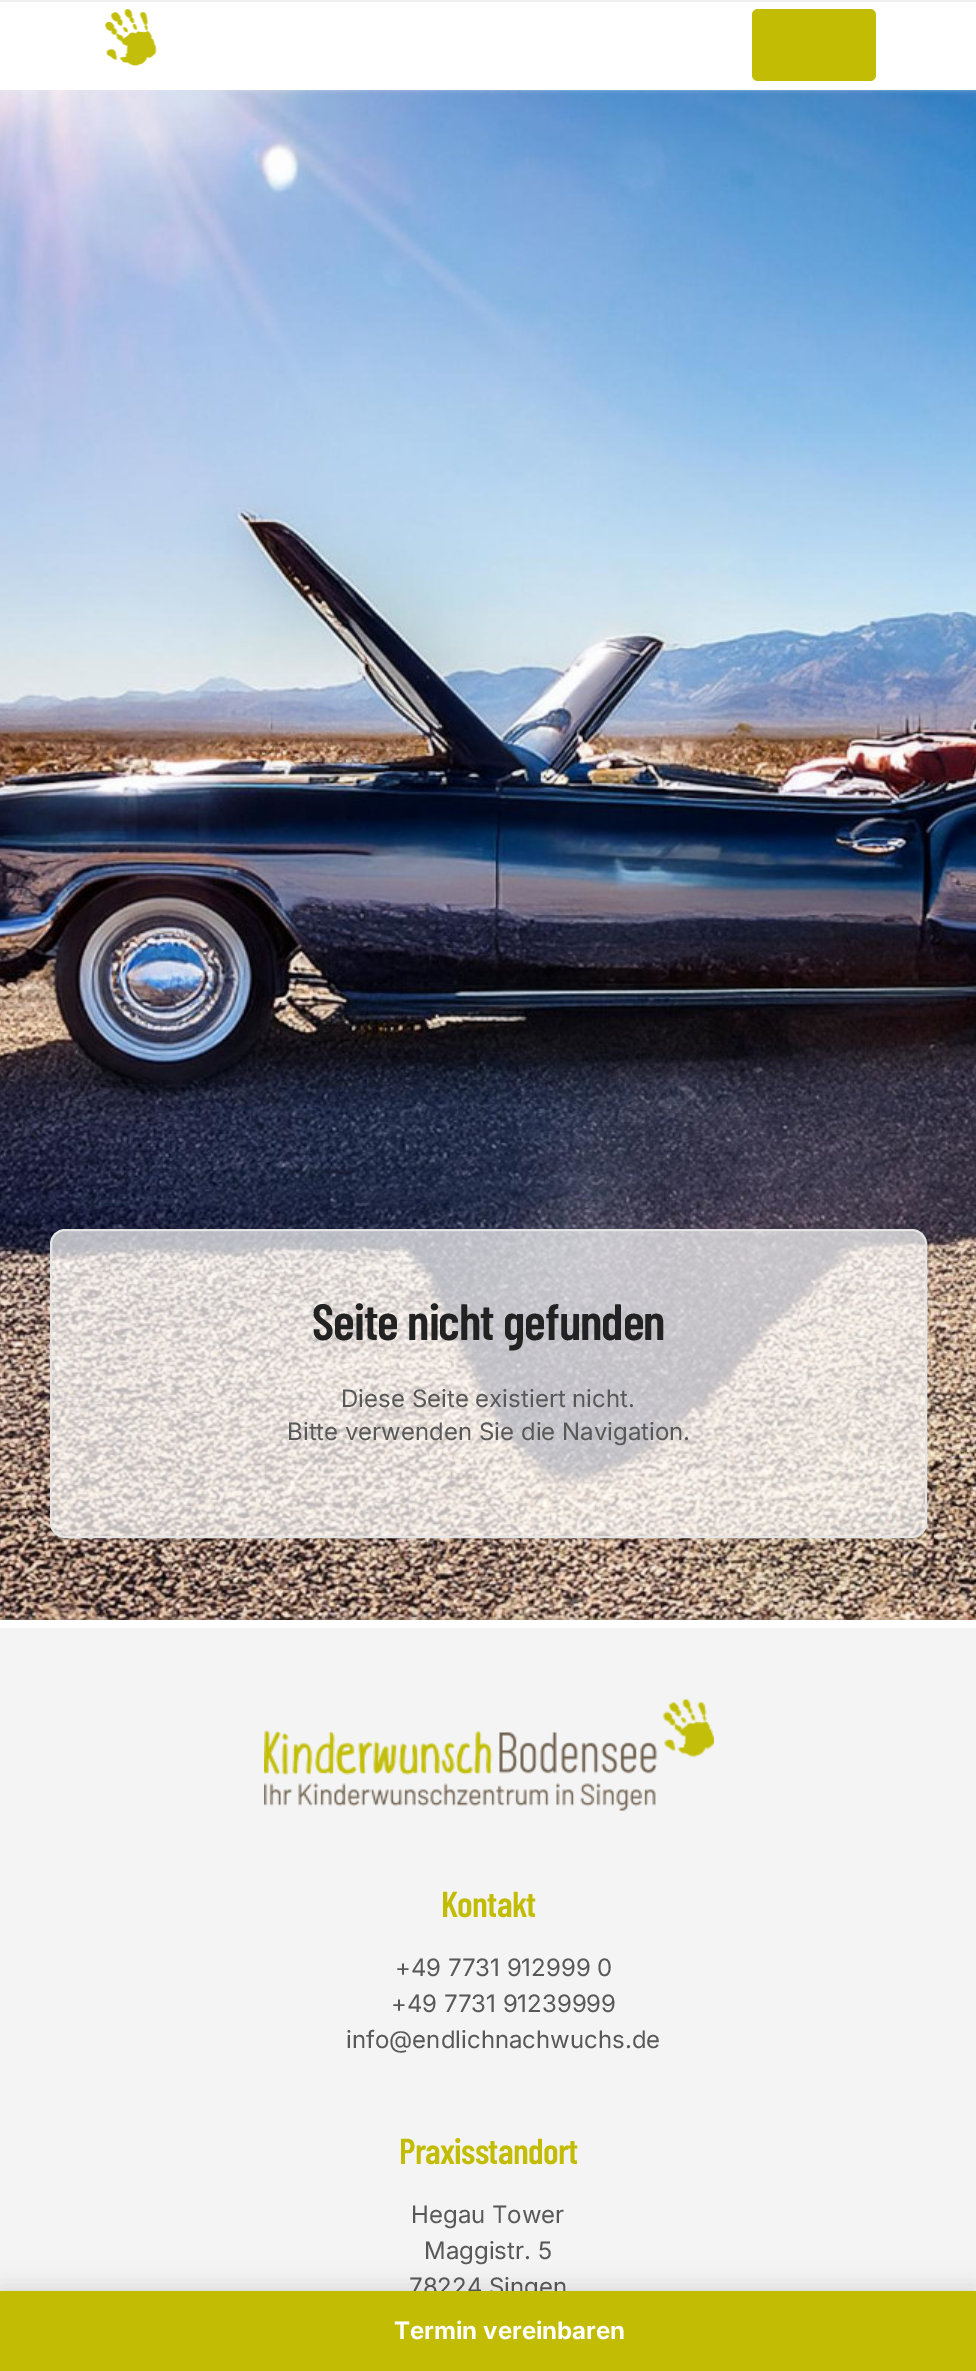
%!PS-Adobe-3.0
%%BoundingBox: 0 0 976 2371
%%LanguageLevel: 3
%%Pages: 1
%%EndComments
%%BeginProlog
/setink { 3 { 255 div 3 1 roll } repeat setrgbcolor } def
/usefont { [ exch dup neg 0 0 3 -1 roll 0 0 ] selectfont } def
/drawtext { setink usefont moveto show } def
/fillbox { setink rectfill } def
/setalpha { dup .setfillconstantalpha .setstrokeconstantalpha } def
/rrect { 5 dict begin { /r /h /w /y /x } { exch def } forall
  x r add y moveto x w add y 2 copy h add r arct x w add y h add x 1 index r arct
  x y h add x y r arct x y 2 copy exch w add exch r arct closepath end } def
/softshadow { 12 dict begin { /a /b /q /h /w /y /x } { exch def } forall gsave /was 0 def
  9 -2 -9 { dup b mul 4 div /e exch def 1 sub .425 mul 2.718 exch exp 1 add a .99 .min exch div /now exch def
    1 1 now sub 1 was sub div sub setalpha /was now def
    w h .min e 2 mul add 0 gt { x e sub y e sub w e 2 mul add h e 2 mul add
      q e add b .6 mul add w h .min 2 div e add .min 0 .max rrect fill } if } for grestore end } def
/drawimage { 5 dict begin { /h /w /y /x /name } { exch def } forall
  gsave x y translate w h scale
  w h 8 [w 0 0 h 0 0] name (r) file false 3 colorimage grestore end } def
%%EndProlog
%%BeginSetup
<< /PageSize [976 2371] /PageUsesTransparency true >> setpagedevice
%%EndSetup
%%Page: 1 1
0 .pushpdf14devicefilter
0 2371 translate 1 -1 scale
4 setmiterlimit
0 0 976 2371 255 255 255 fillbox
(assets/img2.rgb) 0 90 976 1530 drawimage
234 234 234 setink
0 0 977 90 0 2 0.5 softshadow
0 2 976 88 255 255 255 fillbox
0 0 976 2 240 240 240 fillbox
(assets/img1.rgb) 104 9 53 57 drawimage
194 189 4 setink
752 9 124 72 6 rrect fill
0.7 setalpha
255 255 255 setink
51 1230 875 307 14 rrect fill
1 setalpha
229 229 229 setink
2 setlinewidth
51 1230 875 307 14 rrect stroke
/BarlowCondensed-SemiBold 51 usefont
34 34 34 setink
312 1340 moveto -1 0 (Seite nicht gefunden) ashow
(Diese Seite existiert nicht.) 341 1407 /Inter-Regular 24 88 88 88 drawtext
(Bitte verwenden Sie die Navigation.) 287 1440 /Inter-Regular 24 88 88 88 drawtext
0 1628 976 663 244 244 244 fillbox
(assets/img3.rgb) 264 1699 450 112 drawimage
/BarlowCondensed-SemiBold 36 usefont
194 189 4 setink
441 1917 moveto -0.75 0 (Kontakt) ashow
(+49 7731 912999 0) 395 1976 /Inter-Regular 24 88 88 88 drawtext
(+49 7731 91239999) 391 2012 /Inter-Regular 24 88 88 88 drawtext
(info@endlichnachwuchs.de) 346 2048 /Inter-Regular 24 88 88 88 drawtext
/BarlowCondensed-SemiBold 36 usefont
194 189 4 setink
399 2164 moveto -0.75 0 (Praxisstandort) ashow
(Hegau Tower) 411 2223 /Inter-Regular 24 88 88 88 drawtext
(Maggistr. 5) 424 2259 /Inter-Regular 24 88 88 88 drawtext
(78224 Singen) 409 2295 /Inter-Regular 24 88 88 88 drawtext
0 0 0 setink
0 2286 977 81 0 10.5 0.1 softshadow
0 2291 976 80 194 189 4 fillbox
(Termin vereinbaren) 394 2339 /Inter-Bold 24 255 255 255 drawtext
.poppdf14devicefilter showpage
%%EOF
